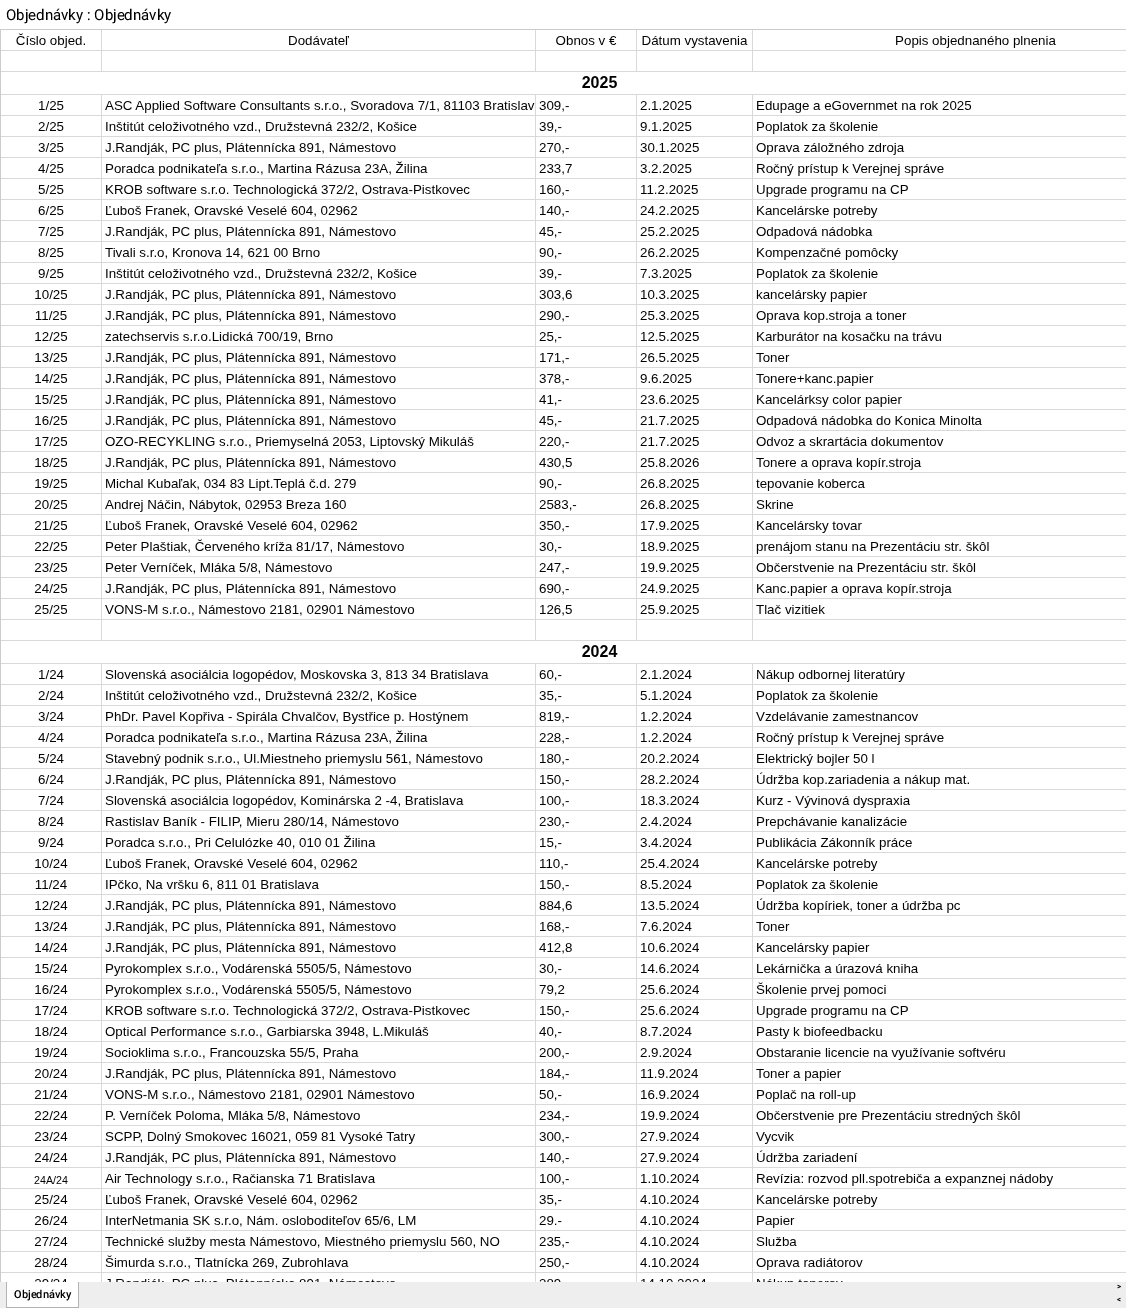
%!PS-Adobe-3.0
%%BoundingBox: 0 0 1126 1308
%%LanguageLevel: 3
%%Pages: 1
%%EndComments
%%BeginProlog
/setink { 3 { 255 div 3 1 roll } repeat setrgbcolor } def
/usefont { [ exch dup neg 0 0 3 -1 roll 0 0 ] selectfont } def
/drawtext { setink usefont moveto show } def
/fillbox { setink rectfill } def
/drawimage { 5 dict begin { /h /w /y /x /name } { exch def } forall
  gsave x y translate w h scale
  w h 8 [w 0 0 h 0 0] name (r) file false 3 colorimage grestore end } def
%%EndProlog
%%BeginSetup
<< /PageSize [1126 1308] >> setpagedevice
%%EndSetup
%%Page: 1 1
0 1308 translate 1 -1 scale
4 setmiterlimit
0 0 1126 1308 255 255 255 fillbox
0 29 1126 1 204 204 204 fillbox
(Objednávky : Objednávky) 6 20 /Roboto-Regular 15 0 0 0 drawtext
(assets/img1.rgb) 0 30 1126 1252 drawimage
0 1282 1126 26 238 238 238 fillbox
7 1282 71 25 255 255 255 fillbox
78 1282 1 26 179 179 179 fillbox
6 1307 73 1 179 179 179 fillbox
6 1282 1 26 179 179 179 fillbox
(Objednávky) 14 1298 /Roboto-Medium 11 0 0 0 drawtext
(>) 1117 1289 /Roboto-Bold 8 0 0 0 drawtext
(<) 1117 1302 /Roboto-Bold 8 0 0 0 drawtext
showpage
%%EOF
